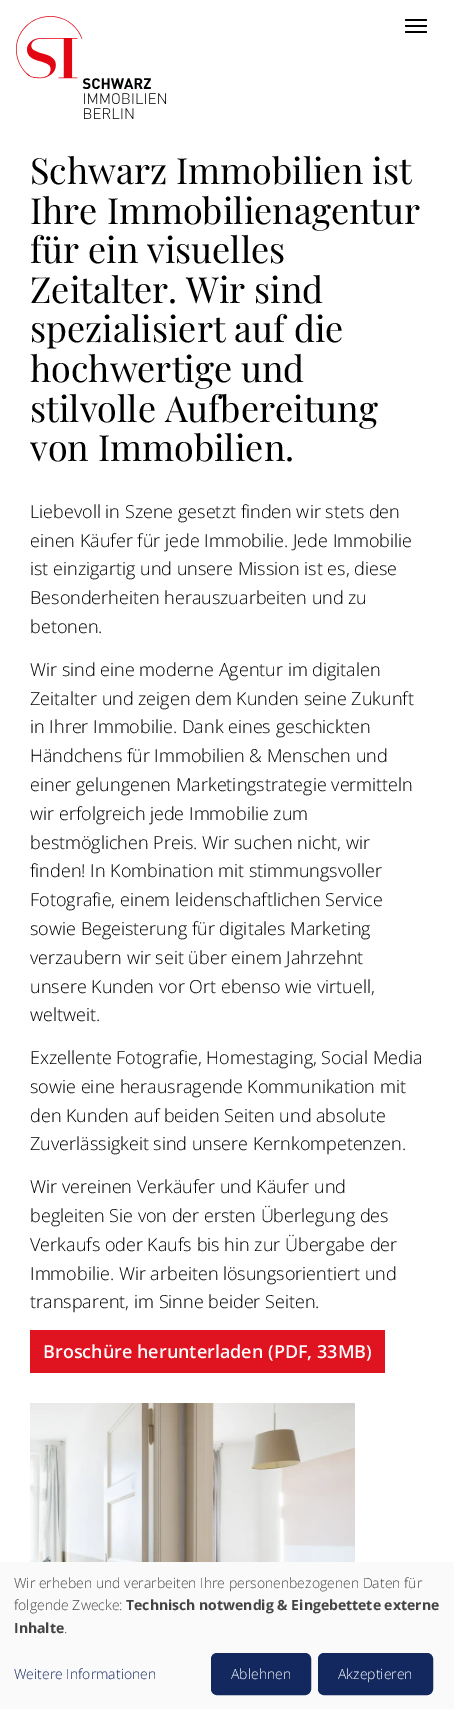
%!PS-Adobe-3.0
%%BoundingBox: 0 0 454 1709
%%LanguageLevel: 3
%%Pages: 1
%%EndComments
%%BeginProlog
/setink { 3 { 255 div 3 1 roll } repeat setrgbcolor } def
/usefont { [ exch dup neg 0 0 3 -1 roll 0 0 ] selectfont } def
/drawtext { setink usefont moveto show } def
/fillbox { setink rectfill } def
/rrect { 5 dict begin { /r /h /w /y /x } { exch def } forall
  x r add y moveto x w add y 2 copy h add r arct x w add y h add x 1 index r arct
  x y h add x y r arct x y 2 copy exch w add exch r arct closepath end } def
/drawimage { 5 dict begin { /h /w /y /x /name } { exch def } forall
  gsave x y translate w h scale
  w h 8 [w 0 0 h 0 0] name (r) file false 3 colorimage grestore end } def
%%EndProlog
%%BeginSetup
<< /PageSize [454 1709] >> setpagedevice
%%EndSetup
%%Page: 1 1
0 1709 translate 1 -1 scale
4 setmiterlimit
0 0 454 1709 255 255 255 fillbox
(assets/img1.rgb) 16 16 150 103 drawimage
0 0 0 setink
405 19 22 2 1 rrect fill
405 25 22 2 1 rrect fill
405 31 22 2 1 rrect fill
(Schwarz Immobilien ist) 30 184 /PlayfairDisplay-Regular 36 0 0 0 drawtext
(Ihre Immobilienagentur) 30 224 /PlayfairDisplay-Regular 36 0 0 0 drawtext
(für ein visuelles) 30 263 /PlayfairDisplay-Regular 36 0 0 0 drawtext
(Zeitalter. Wir sind) 30 303 /PlayfairDisplay-Regular 36 0 0 0 drawtext
(spezialisiert auf die) 30 342 /PlayfairDisplay-Regular 36 0 0 0 drawtext
(hochwertige und) 30 382 /PlayfairDisplay-Regular 36 0 0 0 drawtext
(stilvolle Aufbereitung) 30 422 /PlayfairDisplay-Regular 36 0 0 0 drawtext
(von Immobilien.) 30 461 /PlayfairDisplay-Regular 36 0 0 0 drawtext
(Liebevoll in Szene gesetzt finden wir stets den) 30 518 /OpenSans-Light 18 0 0 0 drawtext
(einen Käufer für jede Immobilie. Jede Immobilie) 30 547 /OpenSans-Light 18 0 0 0 drawtext
(ist einzigartig und unsere Mission ist es, diese) 30 575 /OpenSans-Light 18 0 0 0 drawtext
(Besonderheiten herauszuarbeiten und zu) 30 604 /OpenSans-Light 18 0 0 0 drawtext
(betonen.) 30 633 /OpenSans-Light 18 0 0 0 drawtext
(Wir sind eine moderne Agentur im digitalen) 30 676 /OpenSans-Light 18 0 0 0 drawtext
(Zeitalter und zeigen dem Kunden seine Zukunft) 30 705 /OpenSans-Light 18 0 0 0 drawtext
(in Ihrer Immobilie. Dank eines geschickten) 30 733 /OpenSans-Light 18 0 0 0 drawtext
(Händchens für Immobilien & Menschen und) 30 762 /OpenSans-Light 18 0 0 0 drawtext
(einer gelungenen Marketingstrategie vermitteln) 30 791 /OpenSans-Light 18 0 0 0 drawtext
(wir erfolgreich jede Immobilie zum) 30 820 /OpenSans-Light 18 0 0 0 drawtext
(bestmöglichen Preis. Wir suchen nicht, wir) 30 849 /OpenSans-Light 18 0 0 0 drawtext
(finden! In Kombination mit stimmungsvoller) 30 877 /OpenSans-Light 18 0 0 0 drawtext
(Fotografie, einem leidenschaftlichen Service) 30 906 /OpenSans-Light 18 0 0 0 drawtext
(sowie Begeisterung für digitales Marketing) 30 935 /OpenSans-Light 18 0 0 0 drawtext
(verzaubern wir seit über einem Jahrzehnt) 30 964 /OpenSans-Light 18 0 0 0 drawtext
(unsere Kunden vor Ort ebenso wie virtuell,) 30 993 /OpenSans-Light 18 0 0 0 drawtext
(weltweit.) 30 1021 /OpenSans-Light 18 0 0 0 drawtext
(Exzellente Fotografie, Homestaging, Social Media) 30 1064 /OpenSans-Light 18 0 0 0 drawtext
(sowie eine herausragende Kommunikation mit) 30 1093 /OpenSans-Light 18 0 0 0 drawtext
(den Kunden auf beiden Seiten und absolute) 30 1122 /OpenSans-Light 18 0 0 0 drawtext
(Zuverlässigkeit sind unsere Kernkompetenzen.) 30 1150 /OpenSans-Light 18 0 0 0 drawtext
(Wir vereinen Verkäufer und Käufer und) 30 1193 /OpenSans-Light 18 0 0 0 drawtext
(begleiten Sie von der ersten Überlegung des) 30 1222 /OpenSans-Light 18 0 0 0 drawtext
(Verkaufs oder Kaufs bis hin zur Übergabe der) 30 1251 /OpenSans-Light 18 0 0 0 drawtext
(Immobilie. Wir arbeiten lösungsorientiert und) 30 1280 /OpenSans-Light 18 0 0 0 drawtext
(transparent, im Sinne beider Seiten.) 30 1308 /OpenSans-Light 18 0 0 0 drawtext
30 1330 355 43 224 19 33 fillbox
(Broschüre herunterladen \(PDF, 33MB\)) 43 1358 /OpenSans-SemiBold 18 255 255 255 drawtext
(assets/img2.rgb) 30 1403 325 159 drawimage
0 1562 454 147 250 250 250 fillbox
(Wir erheben und verarbeiten Ihre personenbezogenen Daten für) 14 1588 /OpenSans-Light 14 68 68 68 drawtext
(folgende Zwecke:) 14 1610 /OpenSans-Light 14 68 68 68 drawtext
(Technisch notwendig & Eingebettete externe) 126 1610 /OpenSans-Bold 14 68 68 68 drawtext
(Inhalte) 14 1633 /OpenSans-Bold 14 68 68 68 drawtext
(.) 64 1633 /OpenSans-Light 14 68 68 68 drawtext
(Weitere Informationen) 14 1679 /OpenSans-Light 14 18 40 95 drawtext
212.5 1654.5 97 39 4.5 rrect gsave fill grestore
3 setlinewidth
stroke
(Ablehnen) 231 1679 /OpenSans-Light 14 255 255 255 drawtext
18 40 95 setink
319.5 1654.5 112 39 4.5 rrect gsave fill grestore
stroke
(Akzeptieren) 338 1679 /OpenSans-Light 14 255 255 255 drawtext
showpage
%%EOF
